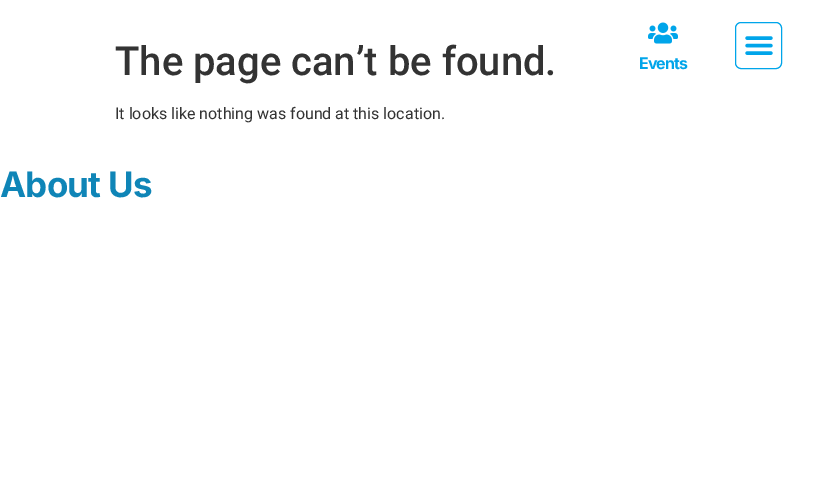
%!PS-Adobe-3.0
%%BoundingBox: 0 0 829 491
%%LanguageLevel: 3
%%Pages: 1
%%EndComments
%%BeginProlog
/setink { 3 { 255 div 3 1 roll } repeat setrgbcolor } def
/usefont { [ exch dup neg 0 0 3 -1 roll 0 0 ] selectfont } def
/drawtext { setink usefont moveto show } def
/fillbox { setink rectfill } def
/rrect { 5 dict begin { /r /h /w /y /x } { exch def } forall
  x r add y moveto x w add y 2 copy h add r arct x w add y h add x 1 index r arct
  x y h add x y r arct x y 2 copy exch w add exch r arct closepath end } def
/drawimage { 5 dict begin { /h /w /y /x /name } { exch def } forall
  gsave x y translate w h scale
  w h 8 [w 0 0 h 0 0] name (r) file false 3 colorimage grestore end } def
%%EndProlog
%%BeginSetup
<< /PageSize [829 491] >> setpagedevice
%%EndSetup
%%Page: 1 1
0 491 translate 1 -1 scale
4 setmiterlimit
0 0 829 491 255 255 255 fillbox
(The page can’t be found.) 115 75 /Roboto-Medium 40 51 51 51 drawtext
(It looks like nothing was found at this location.) 115 119 /Roboto-Regular 16 51 51 51 drawtext
(assets/img1.rgb) 648 22 30 22 drawimage
/Inter-Bold 16 usefont
0 165 234 setink
639 69 moveto -1 0 (Events) ashow
735.5 22.5 46 46 5.5 rrect stroke
(assets/img2.rgb) 745 36 28 19 drawimage
/Inter-Bold 35 usefont
15 133 183 setink
0 197 moveto -0.75 0 (About Us) ashow
showpage
%%EOF
